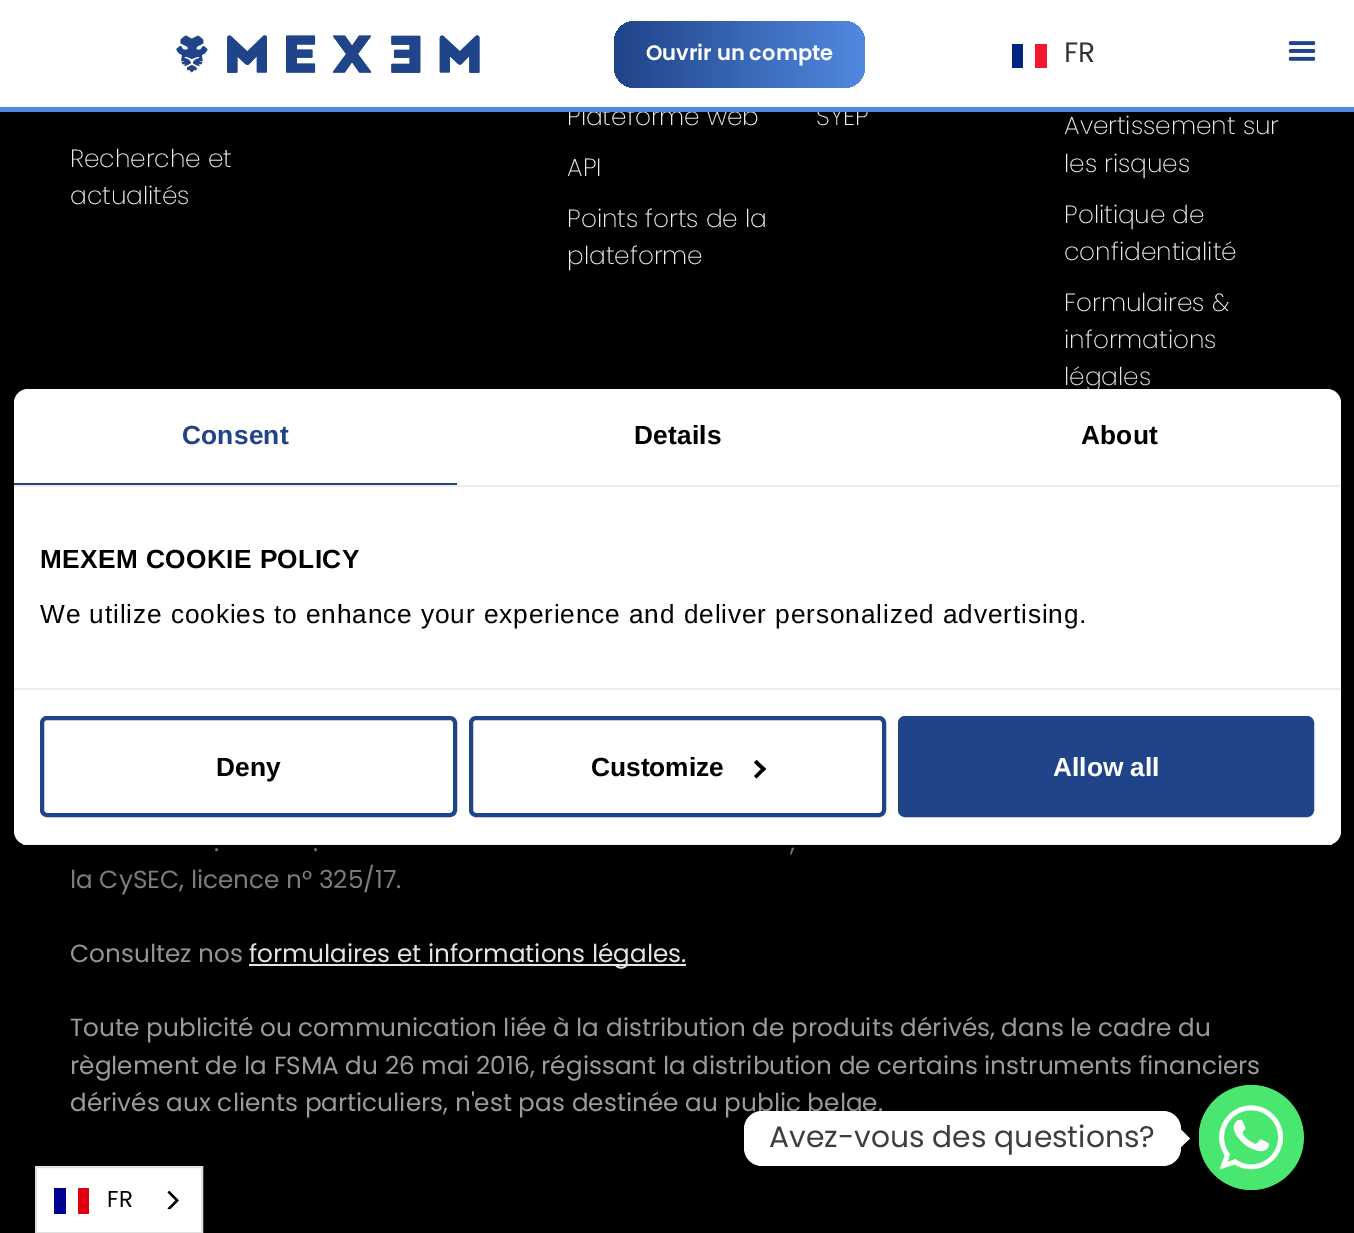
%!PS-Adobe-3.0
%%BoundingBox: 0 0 1354 1233
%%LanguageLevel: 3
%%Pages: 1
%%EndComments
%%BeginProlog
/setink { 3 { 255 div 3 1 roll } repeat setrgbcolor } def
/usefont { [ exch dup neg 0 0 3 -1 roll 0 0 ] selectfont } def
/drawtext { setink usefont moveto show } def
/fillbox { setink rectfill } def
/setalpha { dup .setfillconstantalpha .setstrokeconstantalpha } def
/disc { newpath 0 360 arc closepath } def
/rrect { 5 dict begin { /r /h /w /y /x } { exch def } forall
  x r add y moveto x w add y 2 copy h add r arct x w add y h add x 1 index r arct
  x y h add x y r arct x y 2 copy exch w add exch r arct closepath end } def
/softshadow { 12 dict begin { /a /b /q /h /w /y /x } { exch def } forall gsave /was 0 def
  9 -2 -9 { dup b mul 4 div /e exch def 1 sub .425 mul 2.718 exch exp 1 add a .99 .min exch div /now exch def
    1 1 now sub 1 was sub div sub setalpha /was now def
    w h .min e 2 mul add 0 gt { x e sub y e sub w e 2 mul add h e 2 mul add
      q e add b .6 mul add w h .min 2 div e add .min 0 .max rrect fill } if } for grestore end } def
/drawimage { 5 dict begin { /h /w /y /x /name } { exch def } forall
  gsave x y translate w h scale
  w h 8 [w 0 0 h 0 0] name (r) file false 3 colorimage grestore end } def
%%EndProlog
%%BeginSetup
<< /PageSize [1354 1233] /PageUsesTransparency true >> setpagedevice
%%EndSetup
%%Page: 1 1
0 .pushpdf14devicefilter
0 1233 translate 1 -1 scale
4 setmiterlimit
0 0 1354 1233 0 0 0 fillbox
(Plateforme web) 567 125 /Poppins-ExtraLight 24.8 238 238 238 drawtext
0 0 1354 107 255 255 255 fillbox
(SYEP) 816 125 /Poppins-ExtraLight 24.8 238 238 238 drawtext
0 107 1354 5 81 136 223 fillbox
(assets/img1.rgb) 176 35 304 38 drawimage
32 68 137 setink
614 21 251 67 21 rrect fill
gsave
614 21 251 67 21 rrect clip newpath
gsave 614 21 moveto 618 21 lineto 618 88 lineto 614 88 lineto closepath clip newpath
<< /ShadingType 2 /ColorSpace /DeviceRGB /Coords [131 54 618 54] /Extend [true true] /Function << /FunctionType 3 /Domain [0 1] /Functions [<< /FunctionType 2 /Domain [0 1] /C0 [0.125 0.267 0.537] /C1 [0.318 0.533 0.875] /N 1 >> << /FunctionType 2 /Domain [0 1] /C0 [0.318 0.533 0.875] /C1 [0.125 0.267 0.537] /N 1 >>] /Bounds [0.5] /Encode [0 1 0 1] >> >> shfill grestore
gsave 618 21 moveto 844 21 lineto 855.5 21 865 30.5 865 42 curveto 865 67 lineto 865 78.5 855.5 88 844 88 curveto 618 88 lineto closepath clip newpath
<< /ShadingType 2 /ColorSpace /DeviceRGB /Coords [618 54 1104 54] /Extend [true true] /Function << /FunctionType 3 /Domain [0 1] /Functions [<< /FunctionType 2 /Domain [0 1] /C0 [0.125 0.267 0.537] /C1 [0.318 0.533 0.875] /N 1 >> << /FunctionType 2 /Domain [0 1] /C0 [0.318 0.533 0.875] /C1 [0.125 0.267 0.537] /N 1 >>] /Bounds [0.5] /Encode [0 1 0 1] >> >> shfill grestore
grestore
(Ouvrir un compte) 646 60 /Poppins-SemiBold 21 255 255 255 drawtext
1012 44 11 24 0 38 127 fillbox
1035 44 12 24 243 24 48 fillbox
(FR) 1064 62 /Poppins-Regular 28 51 51 51 drawtext
(assets/img2.rgb) 1288 41 28 20 drawimage
(Recherche et) 70 167 /Poppins-ExtraLight 24.8 238 238 238 drawtext
(actualités) 70 204 /Poppins-ExtraLight 24.8 238 238 238 drawtext
(API) 567 176 /Poppins-ExtraLight 24.8 238 238 238 drawtext
(Points forts de la) 567 227 /Poppins-ExtraLight 24.8 238 238 238 drawtext
(plateforme) 567 264 /Poppins-ExtraLight 24.8 238 238 238 drawtext
(Avertissement sur) 1064 134 /Poppins-ExtraLight 24.8 238 238 238 drawtext
(les risques) 1064 172 /Poppins-ExtraLight 24.8 238 238 238 drawtext
(Politique de) 1064 223 /Poppins-ExtraLight 24.8 238 238 238 drawtext
(confidentialité) 1064 260 /Poppins-ExtraLight 24.8 238 238 238 drawtext
(Formulaires &) 1064 311 /Poppins-ExtraLight 24.8 238 238 238 drawtext
(informations) 1064 348 /Poppins-ExtraLight 24.8 238 238 238 drawtext
(légales) 1064 385 /Poppins-ExtraLight 24.8 238 238 238 drawtext
(.) 214 851 /Poppins-Regular 24.8 155 155 155 drawtext
(.) 313 851 /Poppins-Regular 24.8 155 155 155 drawtext
(,) 790 851 /Poppins-Regular 24.8 155 155 155 drawtext
(la CySEC, licence n° 325/17.) 70 888 /Poppins-Regular 24.8 155 155 155 drawtext
(Consultez nos) 70 962 /Poppins-Regular 24.8 155 155 155 drawtext
249 964 437 2 238 238 238 fillbox
(formulaires et informations légales.) 249 962 /Poppins-Regular 24.8 238 238 238 drawtext
(Toute publicité ou communication liée à la distribution de produits dérivés, dans le cadre du) 70 1036 /Poppins-Regular 24.8 155 155 155 drawtext
(règlement de la FSMA du 26 mai 2016, régissant la distribution de certains instruments financiers) 70 1074 /Poppins-Regular 24.8 155 155 155 drawtext
(dérivés aux clients particuliers, n'est pas destinée au public belge.) 70 1111 /Poppins-Regular 24.8 155 155 155 drawtext
0 0 0 setink
14 445 1327 456 14 59.5 0.3 softshadow
255 255 255 setink
14 389 1327 456 14 rrect fill
14 485 1327 2 238 238 238 fillbox
14 483 443 2 32 68 137 fillbox
/LiberationSans-Bold 26.25 usefont
182 444 moveto 0.25 0 (Consent) ashow
0 0 0 setink
634 444 moveto 0.25 0 (Details) ashow
1081 444 moveto 0.25 0 (About) ashow
14 688 1327 2 238 238 238 fillbox
0 0 0 setink
40 568 moveto 0.4 0 (MEXEM COOKIE POLICY) ashow
/LiberationSans-Regular 26.25 usefont
40 623 moveto 0.88 0 (We utilize cookies to enhance your experience and deliver personalized advertising.) ashow
gsave
14 389 1327 456 14 rrect clip newpath
23 844 1309 1 238 238 238 fillbox
grestore
32 68 137 setink
4 setlinewidth
42 718 413 97 5 rrect stroke
(Deny) 216 776 /LiberationSans-Bold 26.25 0 0 0 drawtext
32 68 137 setink
471 718 413 97 5 rrect stroke
(Customize) 591 776 /LiberationSans-Bold 26.25 0 0 0 drawtext
756.5 760 moveto 766 769 lineto 763.5 771.5 lineto 754 762.5 lineto closepath fill
763.5 766.5 moveto 766 769 lineto 756.5 778.5 lineto 754 776 lineto closepath fill
32 68 137 setink
900 718 412 97 5 rrect gsave fill grestore
stroke
(Allow all) 1053 776 /LiberationSans-Bold 26.25 255 255 255 drawtext
73 230 112 setink
1251.5 1137.5 52.5 disc fill
(assets/img3.rgb) 1199 1085 105 105 drawimage
0 0 0 setink
744 1113 437 54 18 7 0.15 softshadow
255 255 255 setink
744 1111 437 55 18 rrect fill
(Avez-vous des questions?) 769 1147 /Poppins-Regular 29.75 61 61 61 drawtext
255 255 255 setink
1181 1147 moveto 1181 1129.5 lineto 1190 1138.5 lineto closepath fill
36 1167 moveto 202 1167 lineto 202 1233 lineto 36 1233 lineto closepath gsave fill grestore
224 224 224 setink
2 setlinewidth
stroke
54 1188 12 26 0 0 145 fillbox
78 1188 11 26 225 0 15 fillbox
(FR) 107 1207 /Poppins-Regular 23 0 0 0 drawtext
(assets/img4.rgb) 167 1190 12 20 drawimage
.poppdf14devicefilter showpage
%%EOF
